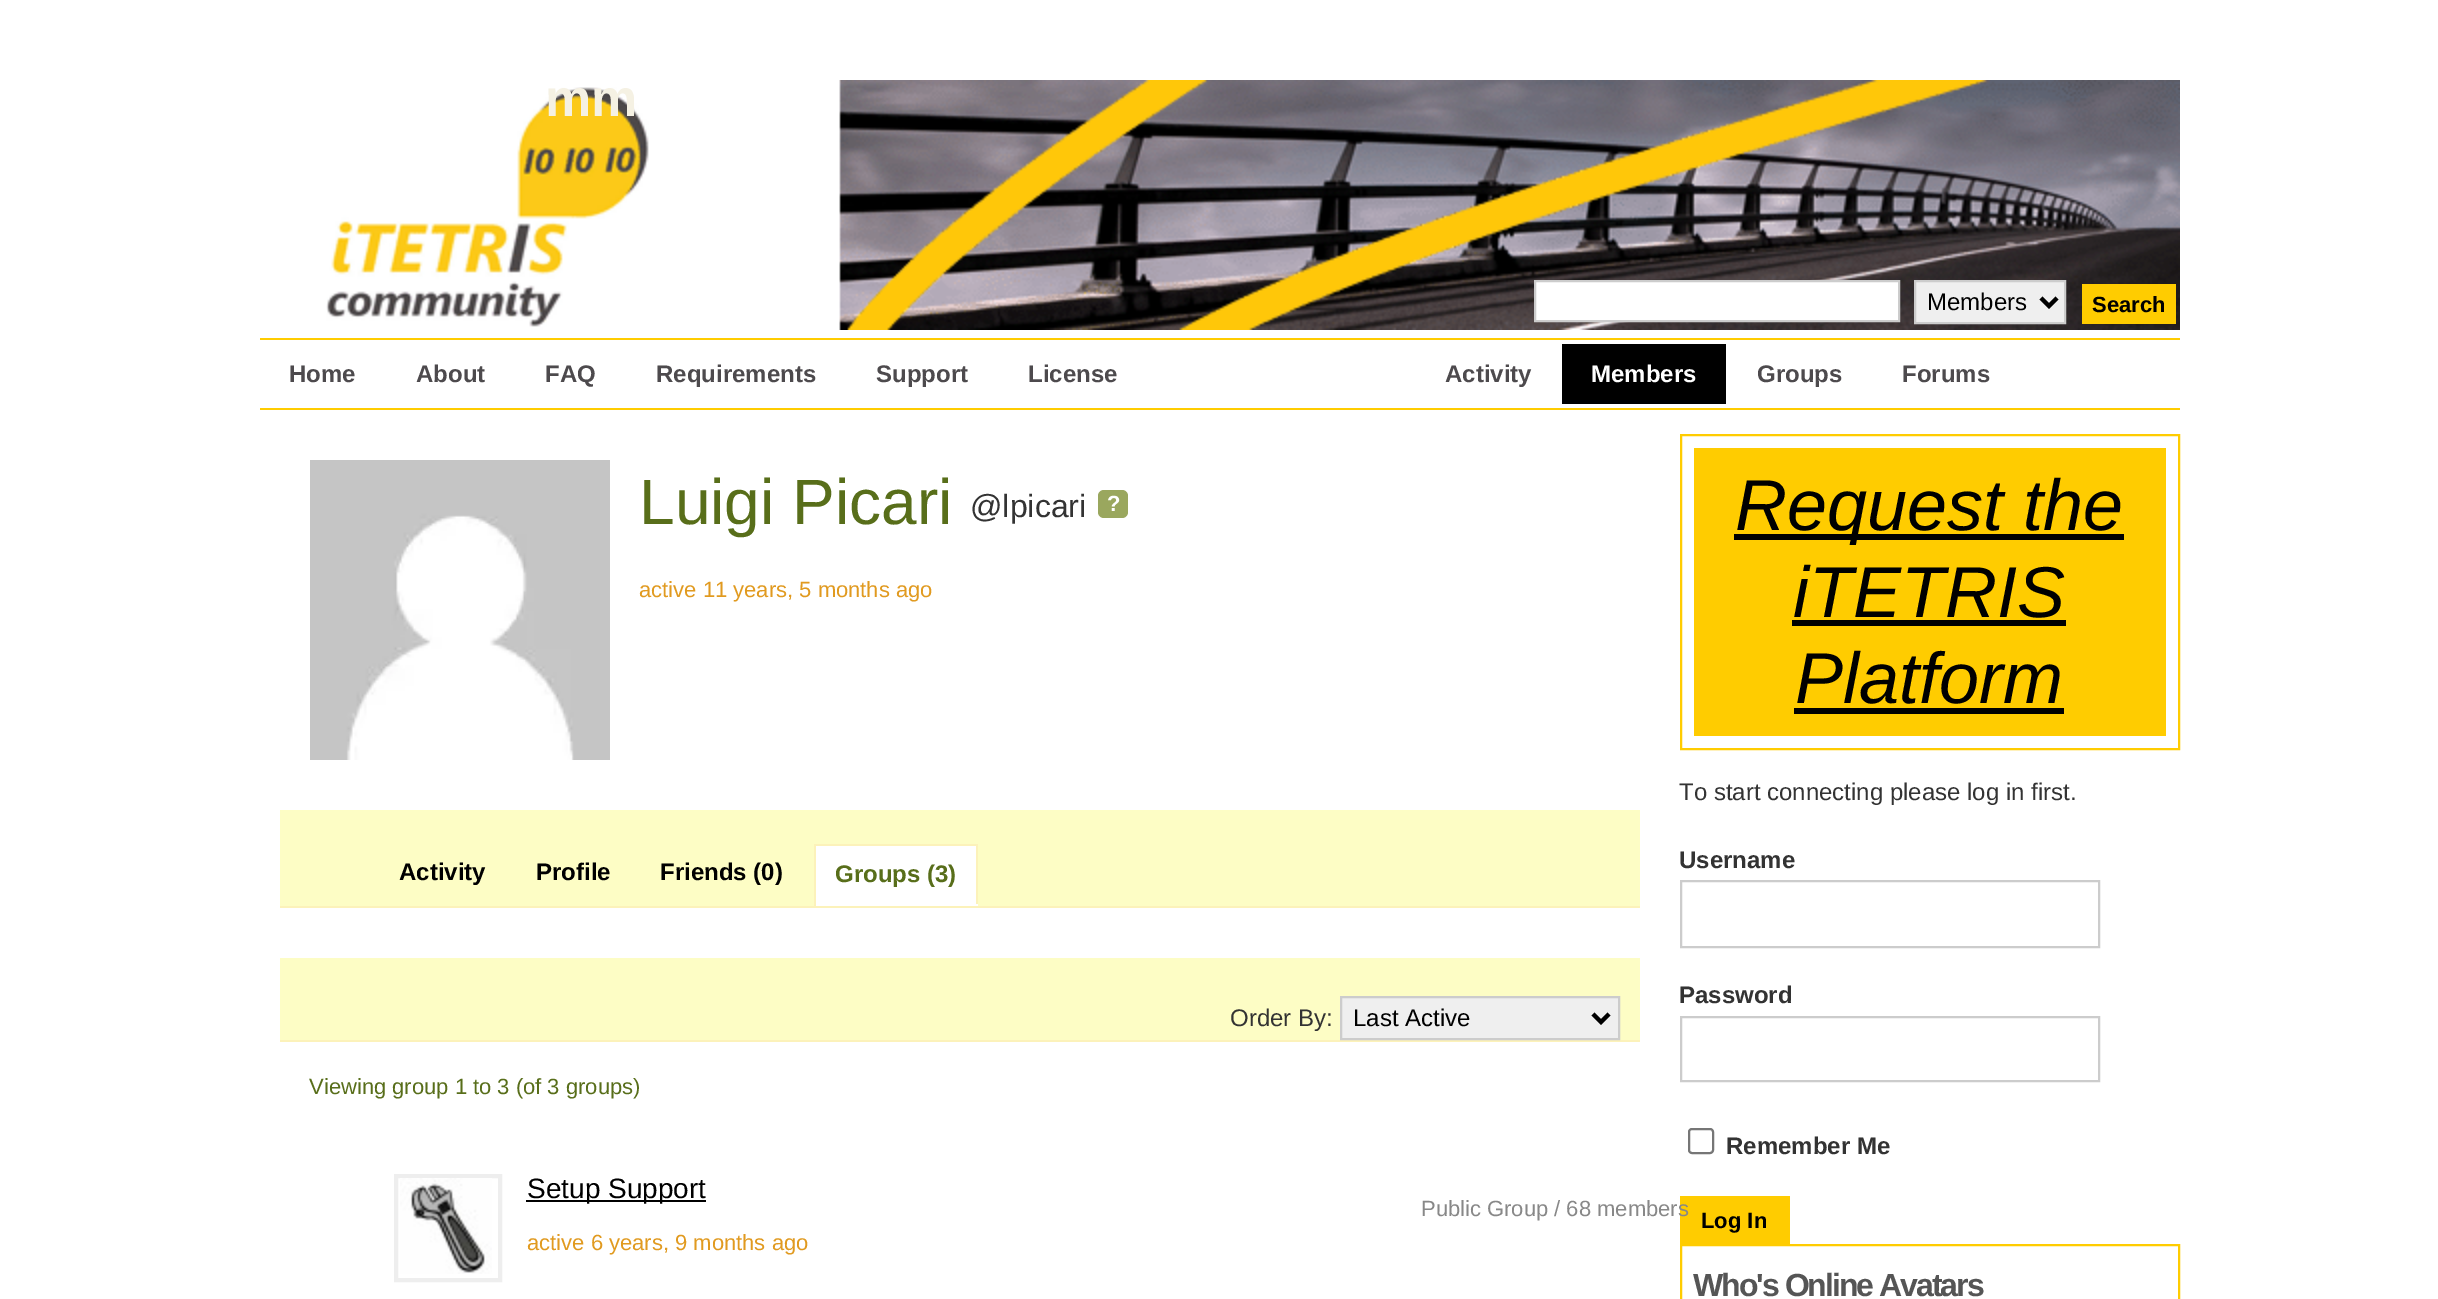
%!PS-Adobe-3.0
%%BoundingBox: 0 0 2438 1299
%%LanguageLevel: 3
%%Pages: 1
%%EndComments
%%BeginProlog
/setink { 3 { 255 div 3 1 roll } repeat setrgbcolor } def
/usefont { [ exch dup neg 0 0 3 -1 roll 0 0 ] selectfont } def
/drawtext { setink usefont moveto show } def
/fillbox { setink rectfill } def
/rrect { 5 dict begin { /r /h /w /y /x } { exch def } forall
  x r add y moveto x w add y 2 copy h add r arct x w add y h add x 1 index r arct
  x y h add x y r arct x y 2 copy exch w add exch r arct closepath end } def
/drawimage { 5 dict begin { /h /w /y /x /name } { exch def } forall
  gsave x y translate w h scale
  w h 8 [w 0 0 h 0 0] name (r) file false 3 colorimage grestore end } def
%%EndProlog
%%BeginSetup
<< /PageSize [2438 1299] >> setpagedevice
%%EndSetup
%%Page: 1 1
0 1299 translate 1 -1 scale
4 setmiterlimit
0 0 2438 1299 255 255 255 fillbox
(assets/img1.rgb) 326 80 1854 250 drawimage
(mm) 545 116 /LiberationSans-Bold 52 245 241 227 drawtext
255 255 255 setink
1535 281 moveto 1899 281 lineto 1899 321 lineto 1535 321 lineto closepath gsave fill grestore
204 204 204 setink
2 setlinewidth
stroke
239 239 239 setink
1915 281 moveto 2065 281 lineto 2065 323 lineto 1915 323 lineto closepath gsave fill grestore
204 204 204 setink
stroke
0 0 0 setink
4 setlinewidth
2041 298 moveto 2049 306 lineto 2057 298 lineto stroke
(Members) 1927 310 /LiberationSans-Regular 24 0 0 0 drawtext
2082 284 94 40 255 204 0 fillbox
(Search) 2092 312 /LiberationSans-Bold 22 0 0 0 drawtext
260 338 1920 2 255 204 0 fillbox
260 408 1920 2 255 204 0 fillbox
(Home) 289 382 /LiberationSans-Bold 24 77 74 77 drawtext
(About) 416 382 /LiberationSans-Bold 24 77 74 77 drawtext
(FAQ) 545 382 /LiberationSans-Bold 24 77 74 77 drawtext
(Requirements) 656 382 /LiberationSans-Bold 24 77 74 77 drawtext
(Support) 876 382 /LiberationSans-Bold 24 77 74 77 drawtext
(License) 1028 382 /LiberationSans-Bold 24 77 74 77 drawtext
(Activity) 1445 382 /LiberationSans-Bold 24 77 74 77 drawtext
1562 344 164 60 0 0 0 fillbox
(Members) 1591 382 /LiberationSans-Bold 24 255 255 255 drawtext
(Groups) 1757 382 /LiberationSans-Bold 24 77 74 77 drawtext
(Forums) 1902 382 /LiberationSans-Bold 24 77 74 77 drawtext
(assets/img2.rgb) 310 460 300 300 drawimage
(Luigi Picari) 639 524 /LiberationSans-Regular 64 88 110 26 drawtext
(@lpicari) 970 517 /LiberationSans-Regular 32 51 51 51 drawtext
154 167 94 setink
1098 490 30 28 6 rrect fill
(?) 1107 511 /LiberationSans-Bold 22 255 255 255 drawtext
(active 11 years, 5 months ago) 639 597 /LiberationSans-Regular 22 225 154 31 drawtext
280 810 1360 96 253 253 197 fillbox
280 906 1360 2 252 242 186 fillbox
(Activity) 399 880 /LiberationSans-Bold 24 0 0 0 drawtext
(Profile) 536 880 /LiberationSans-Bold 24 0 0 0 drawtext
(Friends \(0\)) 660 880 /LiberationSans-Bold 24 0 0 0 drawtext
816 846 160 58 255 255 255 fillbox
814 844 164 2 252 242 186 fillbox
976 844 2 62 252 242 186 fillbox
814 904 164 2 255 255 255 fillbox
814 844 2 62 252 242 186 fillbox
(Groups \(3\)) 835 882 /LiberationSans-Bold 24 88 110 26 drawtext
280 958 1360 82 253 253 197 fillbox
280 1040 1360 2 252 242 186 fillbox
(Order By:) 1230 1026 /LiberationSans-Regular 24 51 51 51 drawtext
239 239 239 setink
1341 997 moveto 1619 997 lineto 1619 1039 lineto 1341 1039 lineto closepath gsave fill grestore
204 204 204 setink
2 setlinewidth
stroke
0 0 0 setink
4 setlinewidth
1593 1014 moveto 1601 1022 lineto 1609 1014 lineto stroke
(Last Active) 1353 1026 /LiberationSans-Regular 24 0 0 0 drawtext
(Viewing group 1 to 3 \(of 3 groups\)) 309 1094 /LiberationSans-Regular 22 88 110 26 drawtext
238 238 238 setink
396 1176 104 104 rectstroke
(assets/img3.rgb) 400 1178 92 96 drawimage
526 1200 180 2 0 0 0 fillbox
(Setup Support) 527 1198 /LiberationSans-Regular 28 0 0 0 drawtext
(active 6 years, 9 months ago) 527 1250 /LiberationSans-Regular 22 225 154 31 drawtext
1680 1196 110 48 255 204 0 fillbox
(Public Group / 68 members) 1421 1216 /LiberationSans-Regular 22 136 136 136 drawtext
255 204 0 setink
2 setlinewidth
1681 435 498 314 rectstroke
1694 448 472 288 255 204 0 fillbox
1734 534 390 6 0 0 0 fillbox
(Request the) 1735 530 /LiberationSans-Italic 72 0 0 0 drawtext
(iTETRIS) 1793 617 /LiberationSans-Italic 72 0 0 0 drawtext
1792 620 274 6 0 0 0 fillbox
(Platform) 1795 703 /LiberationSans-Italic 72 0 0 0 drawtext
1794 708 270 6 0 0 0 fillbox
(To start connecting please log in first.) 1679 800 /LiberationSans-Regular 24 51 51 51 drawtext
(Username) 1679 868 /LiberationSans-Bold 24 51 51 51 drawtext
204 204 204 setink
1681 881 418 66 rectstroke
(Password) 1679 1003 /LiberationSans-Bold 24 51 51 51 drawtext
204 204 204 setink
1681 1017 418 64 rectstroke
118 118 118 setink
1689 1129 24 24 3 rrect stroke
(Remember Me) 1726 1154 /LiberationSans-Bold 24 51 51 51 drawtext
(Log In) 1701 1228 /LiberationSans-Bold 22 0 0 0 drawtext
255 204 0 setink
1681 1245 498 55 rectstroke
/LiberationSans-Bold 32 usefont
85 85 85 setink
1693 1296 moveto -2 0 (Who's Online Avatars) ashow
showpage
%%EOF
